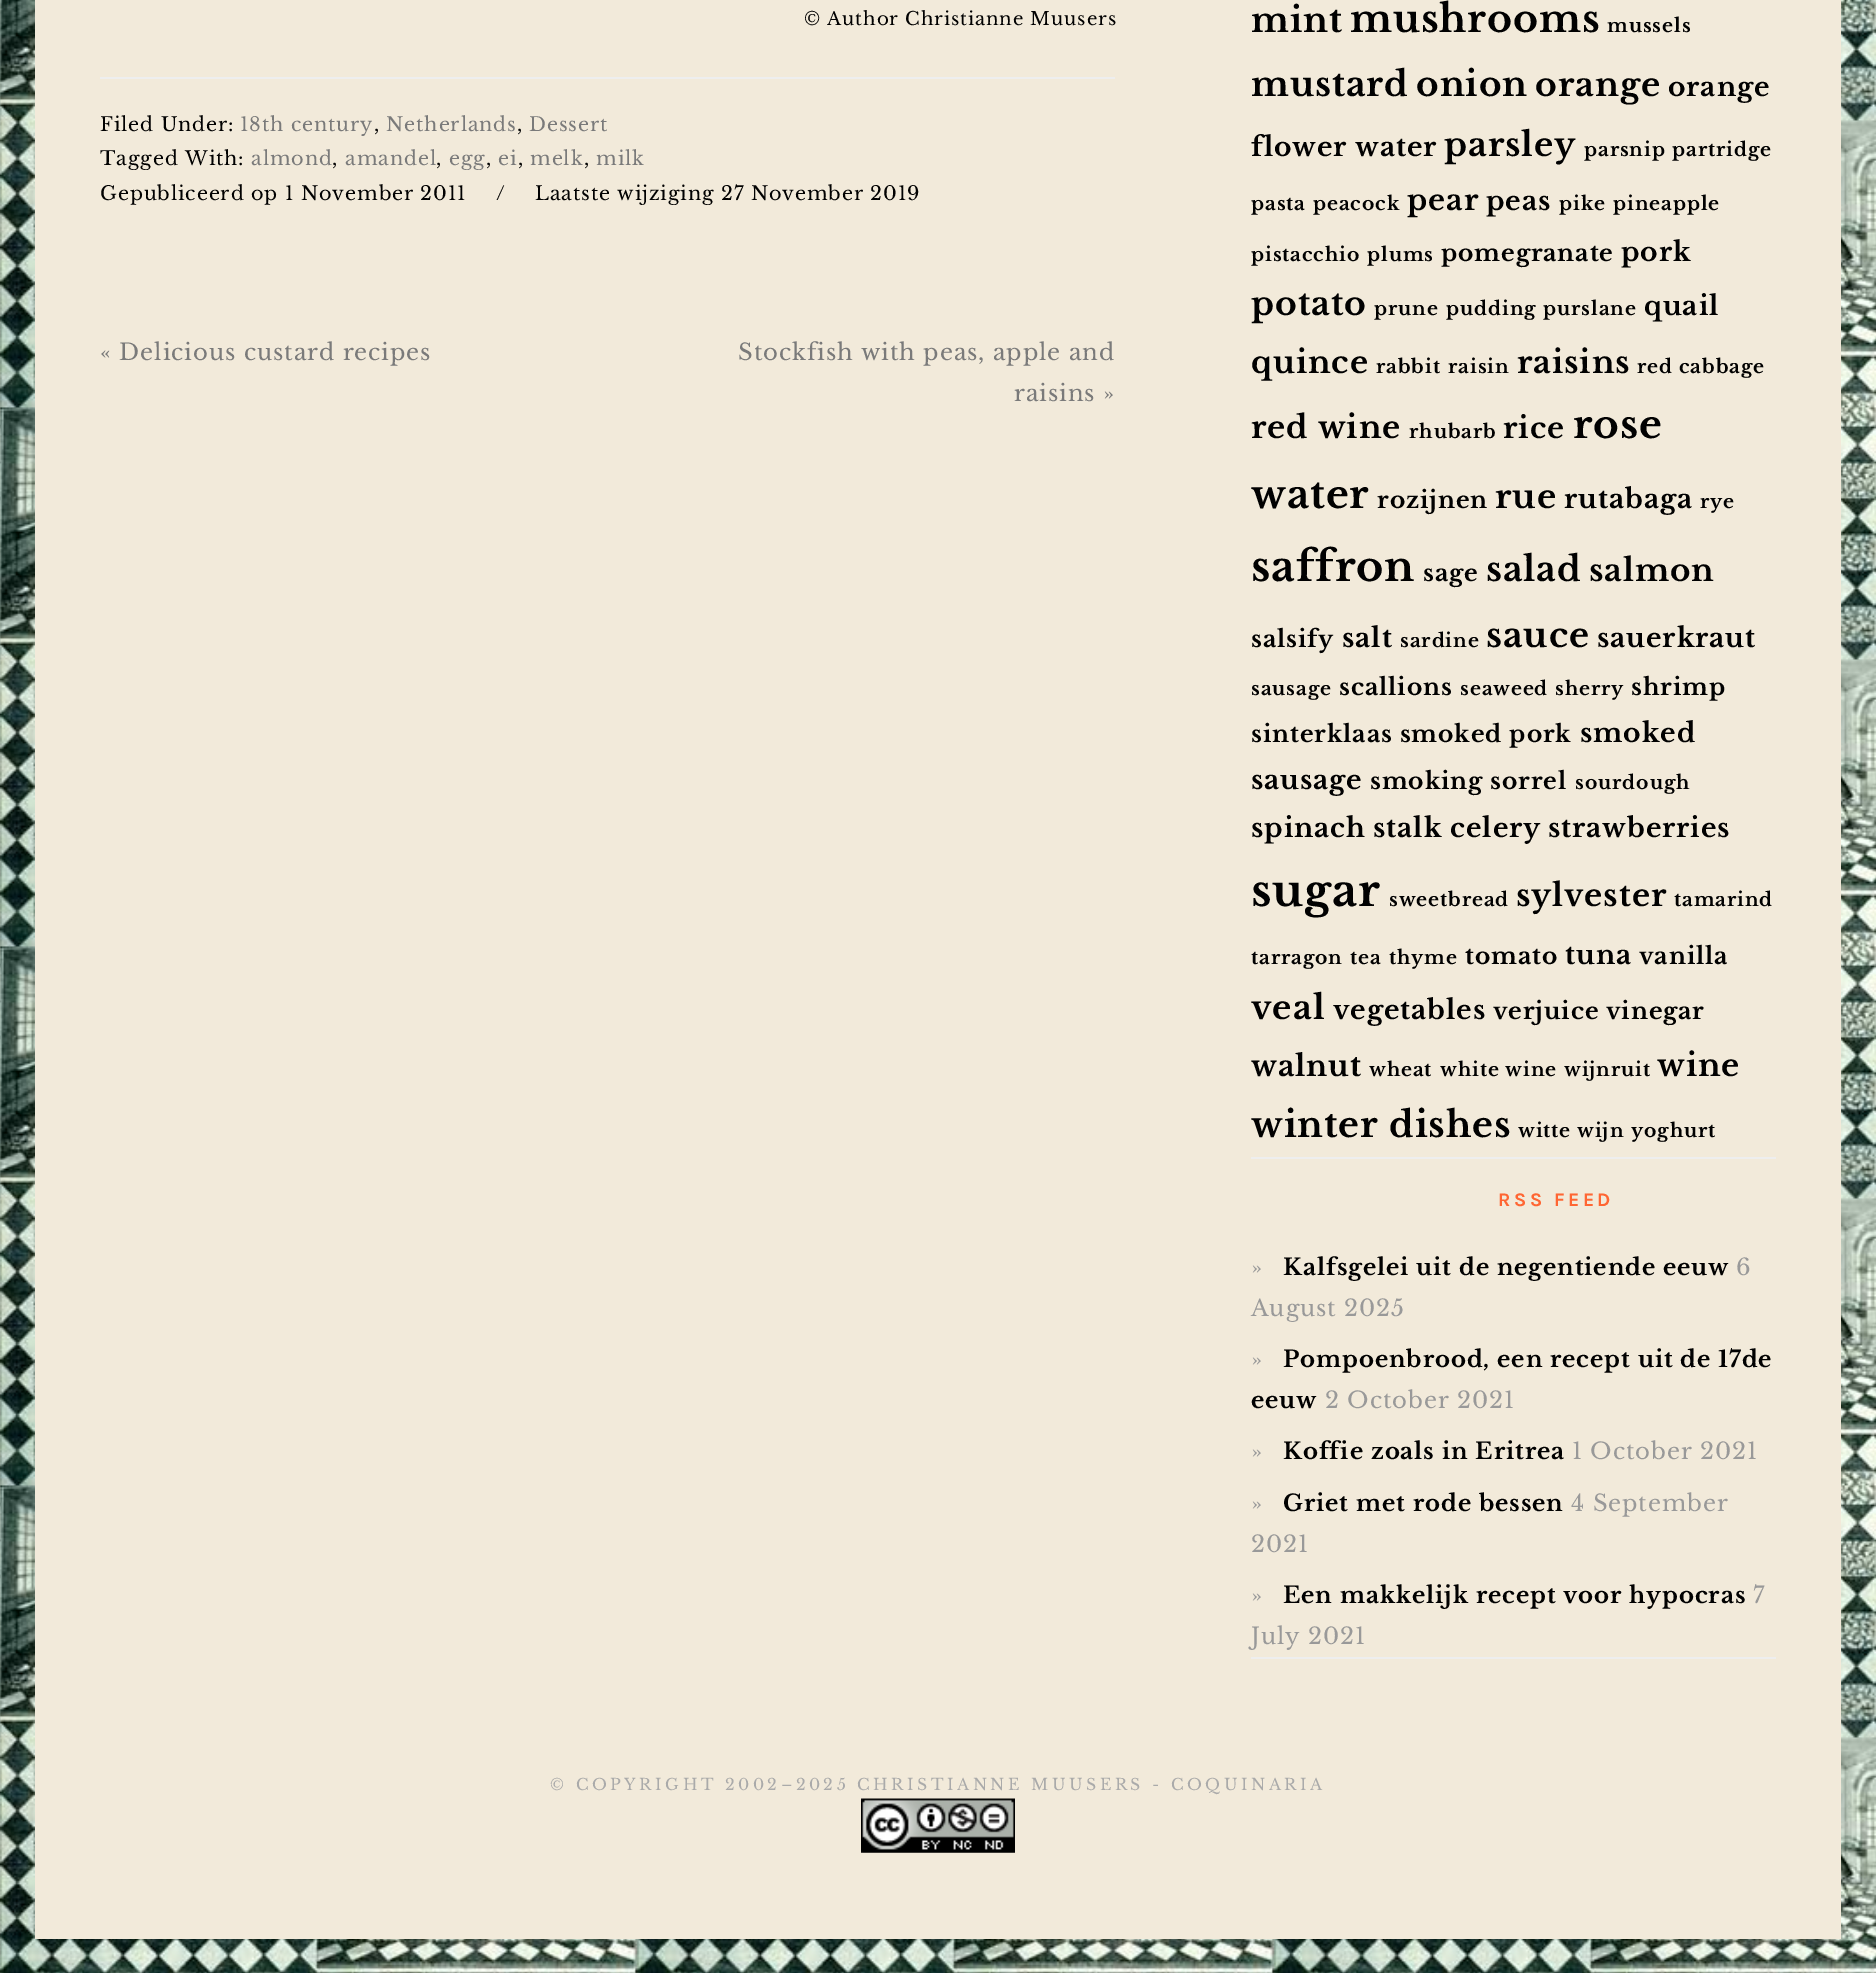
%!PS-Adobe-3.0
%%BoundingBox: 0 0 1876 1973
%%LanguageLevel: 3
%%Pages: 1
%%EndComments
%%BeginProlog
/setink { 3 { 255 div 3 1 roll } repeat setrgbcolor } def
/usefont { [ exch dup neg 0 0 3 -1 roll 0 0 ] selectfont } def
/fillbox { setink rectfill } def
/drawimage { 5 dict begin { /h /w /y /x /name } { exch def } forall
  gsave x y translate w h scale
  w h 8 [w 0 0 h 0 0] name (r) file false 3 colorimage grestore end } def
%%EndProlog
%%BeginSetup
<< /PageSize [1876 1973] >> setpagedevice
%%EndSetup
%%Page: 1 1
0 1973 translate 1 -1 scale
4 setmiterlimit
0 0 1876 1973 255 255 255 fillbox
(assets/img1.rgb) 0 0 1876 1973 drawimage
35 0 1806 1939 242 234 218 fillbox
/LibreBaskerville-Regular 18.25 usefont
1 1 1 setink
804 25 moveto 0.9 0 (© Author Christianne Muusers) ashow
100 77 1015 2 238 238 238 fillbox
/LibreBaskerville-Regular 19.25 usefont
1 1 1 setink
100 131 moveto 0.9 0 (Filed Under:) ashow
122 122 122 setink
240 131 moveto 0.9 0 (18th century) ashow
1 1 1 setink
374 131 moveto 0.9 0 (,) ashow
122 122 122 setink
386 131 moveto 0.9 0 (Netherlands) ashow
1 1 1 setink
517 131 moveto 0.9 0 (,) ashow
122 122 122 setink
529 131 moveto 0.9 0 (Dessert) ashow
1 1 1 setink
100 165 moveto 0.9 0 (Tagged With:) ashow
122 122 122 setink
251 165 moveto 0.9 0 (almond) ashow
1 1 1 setink
332 165 moveto 0.9 0 (,) ashow
122 122 122 setink
345 165 moveto 0.9 0 (amandel) ashow
1 1 1 setink
436 165 moveto 0.9 0 (,) ashow
122 122 122 setink
449 165 moveto 0.9 0 (egg) ashow
1 1 1 setink
486 165 moveto 0.9 0 (,) ashow
122 122 122 setink
498 165 moveto 0.9 0 (ei) ashow
1 1 1 setink
518 165 moveto 0.9 0 (,) ashow
122 122 122 setink
530 165 moveto 0.9 0 (melk) ashow
1 1 1 setink
584 165 moveto 0.9 0 (,) ashow
122 122 122 setink
596 165 moveto 0.9 0 (milk) ashow
1 1 1 setink
100 200 moveto 0.9 0 (Gepubliceerd op 1 November 2011) ashow
496 200 moveto 0.9 0 (/) ashow
535 200 moveto 0.9 0 (Laatste wijziging 27 November 2019) ashow
/LibreBaskerville-Regular 22.75 usefont
122 122 122 setink
100 360 moveto 0.9 0 (« Delicious custard recipes) ashow
738 360 moveto 0.9 0 (Stockfish with peas, apple and) ashow
1014 401 moveto 0.9 0 (raisins ») ashow
1251 1157 525 2 238 238 238 fillbox
/LibreBaskerville-Bold 34.25 usefont
1 1 1 setink
1251 32 moveto 0.9 0 (mint) ashow
/LibreBaskerville-Bold 38 usefont
1350 32 moveto 0.9 0 (mushrooms) ashow
/LibreBaskerville-Bold 18.75 usefont
1607 32 moveto 0.9 0 (mussels) ashow
/LibreBaskerville-Bold 34.25 usefont
1251 96 moveto 0.9 0 (mustard) ashow
1416 96 moveto 0.9 0 (onion) ashow
/LibreBaskerville-Bold 33 usefont
1535 96 moveto 0.9 0 (orange) ashow
/LibreBaskerville-Bold 26.5 usefont
1668 96 moveto 0.9 0 (orange) ashow
1251 156 moveto 0.9 0 (flower water) ashow
/LibreBaskerville-Bold 33 usefont
1444 156 moveto 0.9 0 (parsley) ashow
/LibreBaskerville-Bold 18.75 usefont
1584 156 moveto 0.9 0 (parsnip) ashow
1672 156 moveto 0.9 0 (partridge) ashow
1251 210 moveto 0.9 0 (pasta) ashow
1313 210 moveto 0.9 0 (peacock) ashow
/LibreBaskerville-Bold 29 usefont
1407 210 moveto 0.9 0 (pear) ashow
/LibreBaskerville-Bold 26.5 usefont
1486 210 moveto 0.9 0 (peas) ashow
/LibreBaskerville-Bold 18.75 usefont
1559 210 moveto 0.9 0 (pike) ashow
1613 210 moveto 0.9 0 (pineapple) ashow
1251 261 moveto 0.9 0 (pistacchio) ashow
1367 261 moveto 0.9 0 (plums) ashow
/LibreBaskerville-Bold 23.3 usefont
1441 261 moveto 0.9 0 (pomegranate) ashow
/LibreBaskerville-Bold 26.5 usefont
1621 261 moveto 0.9 0 (pork) ashow
/LibreBaskerville-Bold 33 usefont
1251 315 moveto 0.9 0 (potato) ashow
/LibreBaskerville-Bold 18.75 usefont
1374 315 moveto 0.9 0 (prune) ashow
1446 315 moveto 0.9 0 (pudding) ashow
1543 315 moveto 0.9 0 (purslane) ashow
/LibreBaskerville-Bold 26.5 usefont
1644 315 moveto 0.9 0 (quail) ashow
/LibreBaskerville-Bold 31 usefont
1251 373 moveto 0.9 0 (quince) ashow
/LibreBaskerville-Bold 18.75 usefont
1376 373 moveto 0.9 0 (rabbit) ashow
1448 373 moveto 0.9 0 (raisin) ashow
/LibreBaskerville-Bold 31 usefont
1517 373 moveto 0.9 0 (raisins) ashow
/LibreBaskerville-Bold 18.75 usefont
1637 373 moveto 0.9 0 (red cabbage) ashow
/LibreBaskerville-Bold 31 usefont
1251 438 moveto 0.9 0 (red wine) ashow
/LibreBaskerville-Bold 18.75 usefont
1409 438 moveto 0.9 0 (rhubarb) ashow
/LibreBaskerville-Bold 29 usefont
1503 438 moveto 0.9 0 (rice) ashow
/LibreBaskerville-Bold 39 usefont
1573 438 moveto 0.9 0 (rose) ashow
1251 508 moveto 0.9 0 (water) ashow
/LibreBaskerville-Bold 23.3 usefont
1377 508 moveto 0.9 0 (rozijnen) ashow
/LibreBaskerville-Bold 33 usefont
1495 508 moveto 0.9 0 (rue) ashow
/LibreBaskerville-Bold 26.5 usefont
1564 508 moveto 0.9 0 (rutabaga) ashow
/LibreBaskerville-Bold 18.75 usefont
1700 508 moveto 0.9 0 (rye) ashow
/LibreBaskerville-Bold 41.5 usefont
1251 581 moveto 0.9 0 (saffron) ashow
/LibreBaskerville-Bold 23.3 usefont
1423 581 moveto 0.9 0 (sage) ashow
/LibreBaskerville-Bold 34.25 usefont
1486 581 moveto 0.9 0 (salad) ashow
/LibreBaskerville-Bold 31 usefont
1589 581 moveto 0.9 0 (salmon) ashow
/LibreBaskerville-Bold 23.3 usefont
1251 647 moveto 0.9 0 (salsify) ashow
/LibreBaskerville-Bold 26.5 usefont
1342 647 moveto 0.9 0 (salt) ashow
/LibreBaskerville-Bold 18.75 usefont
1400 647 moveto 0.9 0 (sardine) ashow
/LibreBaskerville-Bold 34.25 usefont
1486 647 moveto 0.9 0 (sauce) ashow
/LibreBaskerville-Bold 26.5 usefont
1597 647 moveto 0.9 0 (sauerkraut) ashow
/LibreBaskerville-Bold 18.75 usefont
1251 695 moveto 0.9 0 (sausage) ashow
/LibreBaskerville-Bold 23.3 usefont
1339 695 moveto 0.9 0 (scallions) ashow
/LibreBaskerville-Bold 18.75 usefont
1460 695 moveto 0.9 0 (seaweed) ashow
1555 695 moveto 0.9 0 (sherry) ashow
/LibreBaskerville-Bold 23.3 usefont
1631 695 moveto 0.9 0 (shrimp) ashow
1251 742 moveto 0.9 0 (sinterklaas smoked pork) ashow
/LibreBaskerville-Bold 26.5 usefont
1580 742 moveto 0.9 0 (smoked) ashow
1251 789 moveto 0.9 0 (sausage) ashow
/LibreBaskerville-Bold 23.3 usefont
1370 789 moveto 0.9 0 (smoking sorrel) ashow
/LibreBaskerville-Bold 18.75 usefont
1575 789 moveto 0.9 0 (sourdough) ashow
/LibreBaskerville-Bold 26.5 usefont
1251 837 moveto 0.9 0 (spinach) ashow
1373 837 moveto 0.9 0 (stalk celery) ashow
1548 837 moveto 0.9 0 (strawberries) ashow
/LibreBaskerville-Bold 44 usefont
1251 906 moveto 0.9 0 (sugar) ashow
/LibreBaskerville-Bold 18.75 usefont
1389 906 moveto 0.9 0 (sweetbread) ashow
/LibreBaskerville-Bold 31 usefont
1516 906 moveto 0.9 0 (sylvester) ashow
/LibreBaskerville-Bold 18.75 usefont
1674 906 moveto 0.9 0 (tamarind) ashow
1251 964 moveto 0.9 0 (tarragon) ashow
1350 964 moveto 0.9 0 (tea) ashow
1389 964 moveto 0.9 0 (thyme) ashow
/LibreBaskerville-Bold 23.3 usefont
1465 964 moveto 0.9 0 (tomato) ashow
/LibreBaskerville-Bold 26.5 usefont
1565 964 moveto 0.9 0 (tuna) ashow
/LibreBaskerville-Bold 23.3 usefont
1639 964 moveto 0.9 0 (vanilla) ashow
/LibreBaskerville-Bold 33 usefont
1251 1019 moveto 0.9 0 (veal) ashow
/LibreBaskerville-Bold 26.5 usefont
1333 1019 moveto 0.9 0 (vegetables) ashow
/LibreBaskerville-Bold 23.3 usefont
1493 1019 moveto 0.9 0 (verjuice) ashow
1606 1019 moveto 0.9 0 (vinegar) ashow
/LibreBaskerville-Bold 29 usefont
1251 1076 moveto 0.9 0 (walnut) ashow
/LibreBaskerville-Bold 18.75 usefont
1369 1076 moveto 0.9 0 (wheat) ashow
1440 1076 moveto 0.9 0 (white wine) ashow
1564 1076 moveto 0.9 0 (wijnruit) ashow
/LibreBaskerville-Bold 31 usefont
1657 1076 moveto 0.9 0 (wine) ashow
/LibreBaskerville-Bold 35.5 usefont
1251 1137 moveto 0.9 0 (winter dishes) ashow
/LibreBaskerville-Bold 18.75 usefont
1518 1137 moveto 0.9 0 (witte wijn) ashow
1631 1137 moveto 0.9 0 (yoghurt) ashow
1251 1657 525 2 238 238 238 fillbox
/Karla-Bold 19.25 usefont
255 102 51 setink
1498 1206 moveto 3.5 0 (RSS FEED) ashow
/LibreBaskerville-Regular 22.75 usefont
153 153 153 setink
1251 1275 moveto 0.9 0 (») ashow
/LibreBaskerville-Bold 22.75 usefont
1 1 1 setink
1283 1275 moveto 0.9 0 (Kalfsgelei uit de negentiende eeuw) ashow
/LibreBaskerville-Regular 22.75 usefont
153 153 153 setink
1736 1275 moveto 0.9 0 (6) ashow
1251 1316 moveto 0.9 0 (August 2025) ashow
1251 1367 moveto 0.9 0 (») ashow
/LibreBaskerville-Bold 22.75 usefont
1 1 1 setink
1283 1367 moveto 0.9 0 (Pompoenbrood, een recept uit de 17de) ashow
1251 1408 moveto 0.9 0 (eeuw) ashow
/LibreBaskerville-Regular 22.75 usefont
153 153 153 setink
1325 1408 moveto 0.9 0 (2 October 2021) ashow
1251 1459 moveto 0.9 0 (») ashow
/LibreBaskerville-Bold 22.75 usefont
1 1 1 setink
1283 1459 moveto 0.9 0 (Koffie zoals in Eritrea) ashow
/LibreBaskerville-Regular 22.75 usefont
153 153 153 setink
1572 1459 moveto 0.9 0 (1 October 2021) ashow
1251 1511 moveto 0.9 0 (») ashow
/LibreBaskerville-Bold 22.75 usefont
1 1 1 setink
1283 1511 moveto 0.9 0 (Griet met rode bessen) ashow
/LibreBaskerville-Regular 22.75 usefont
153 153 153 setink
1571 1511 moveto 0.9 0 (4 September) ashow
1251 1552 moveto 0.9 0 (2021) ashow
1251 1603 moveto 0.9 0 (») ashow
/LibreBaskerville-Bold 22.75 usefont
1 1 1 setink
1283 1603 moveto 0.9 0 (Een makkelijk recept voor hypocras) ashow
/LibreBaskerville-Regular 22.75 usefont
153 153 153 setink
1753 1603 moveto 0.9 0 (7) ashow
1251 1644 moveto 0.9 0 (July 2021) ashow
/LibreBaskerville-Regular 15.75 usefont
170 170 170 setink
550 1790 moveto 3.5 0 (© COPYRIGHT 2002–2025 CHRISTIANNE MUUSERS - COQUINARIA) ashow
(assets/img2.rgb) 861 1798 154 55 drawimage
showpage
%%EOF
